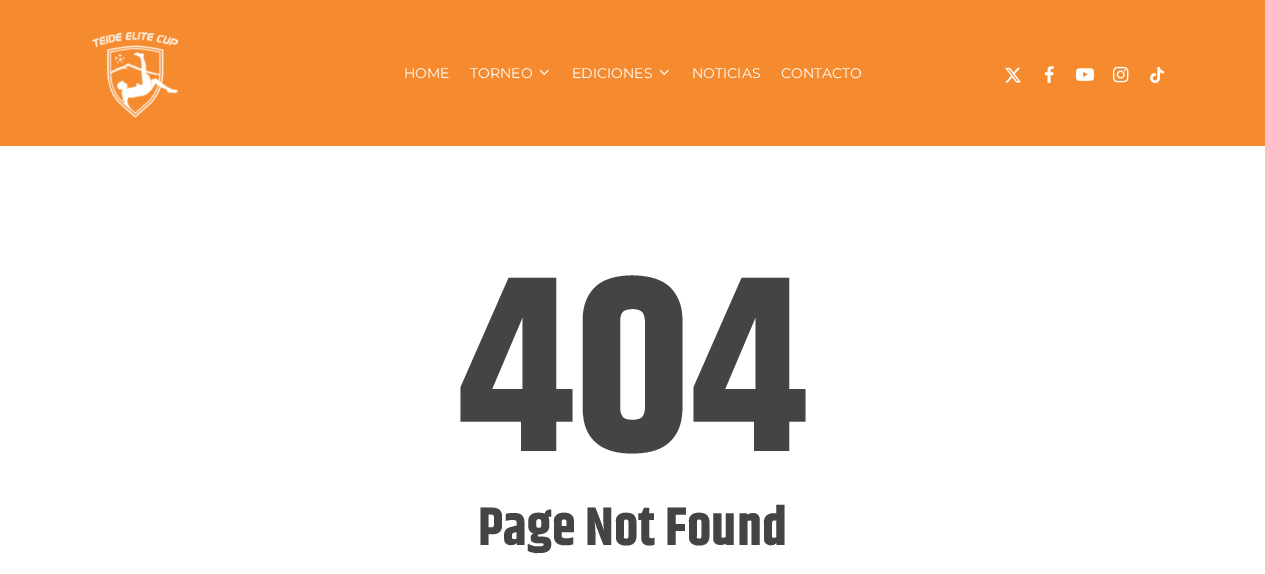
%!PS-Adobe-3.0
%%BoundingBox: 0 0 1265 574
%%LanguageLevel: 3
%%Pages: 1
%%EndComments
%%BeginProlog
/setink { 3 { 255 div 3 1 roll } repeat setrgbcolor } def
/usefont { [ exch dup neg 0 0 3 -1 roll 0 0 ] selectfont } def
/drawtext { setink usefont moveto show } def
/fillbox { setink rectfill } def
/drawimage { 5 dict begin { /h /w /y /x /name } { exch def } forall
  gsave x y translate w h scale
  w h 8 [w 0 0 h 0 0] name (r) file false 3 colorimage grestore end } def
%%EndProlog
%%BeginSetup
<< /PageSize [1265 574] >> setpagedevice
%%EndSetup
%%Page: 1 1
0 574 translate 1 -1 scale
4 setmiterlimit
0 0 1265 574 255 255 255 fillbox
0 0 1265 146 245 139 46 fillbox
(assets/img1.rgb) 92 31 87 87 drawimage
(HOME) 404 78 /Montserrat-Thin 14 255 255 255 drawtext
(TORNEO) 470 78 /Montserrat-Thin 14 255 255 255 drawtext
(assets/img2.rgb) 539 69 10 6 drawimage
(EDICIONES) 572 78 /Montserrat-Thin 14 255 255 255 drawtext
(assets/img2.rgb) 659 69 10 6 drawimage
(NOTICIAS) 692 78 /Montserrat-Thin 14 255 255 255 drawtext
(CONTACTO) 781 78 /Montserrat-Thin 14 255 255 255 drawtext
(assets/img3.rgb) 1005 67 16 16 drawimage
(assets/img4.rgb) 1044 66 10 17 drawimage
(assets/img5.rgb) 1076 68 18 13 drawimage
(assets/img6.rgb) 1113 66 16 17 drawimage
(assets/img7.rgb) 1150 67 14 16 drawimage
(404) 458 451 /Khand-Bold 250 68 68 68 drawtext
(Page Not Found) 478 545 /Khand-Bold 54 68 68 68 drawtext
showpage
%%EOF
